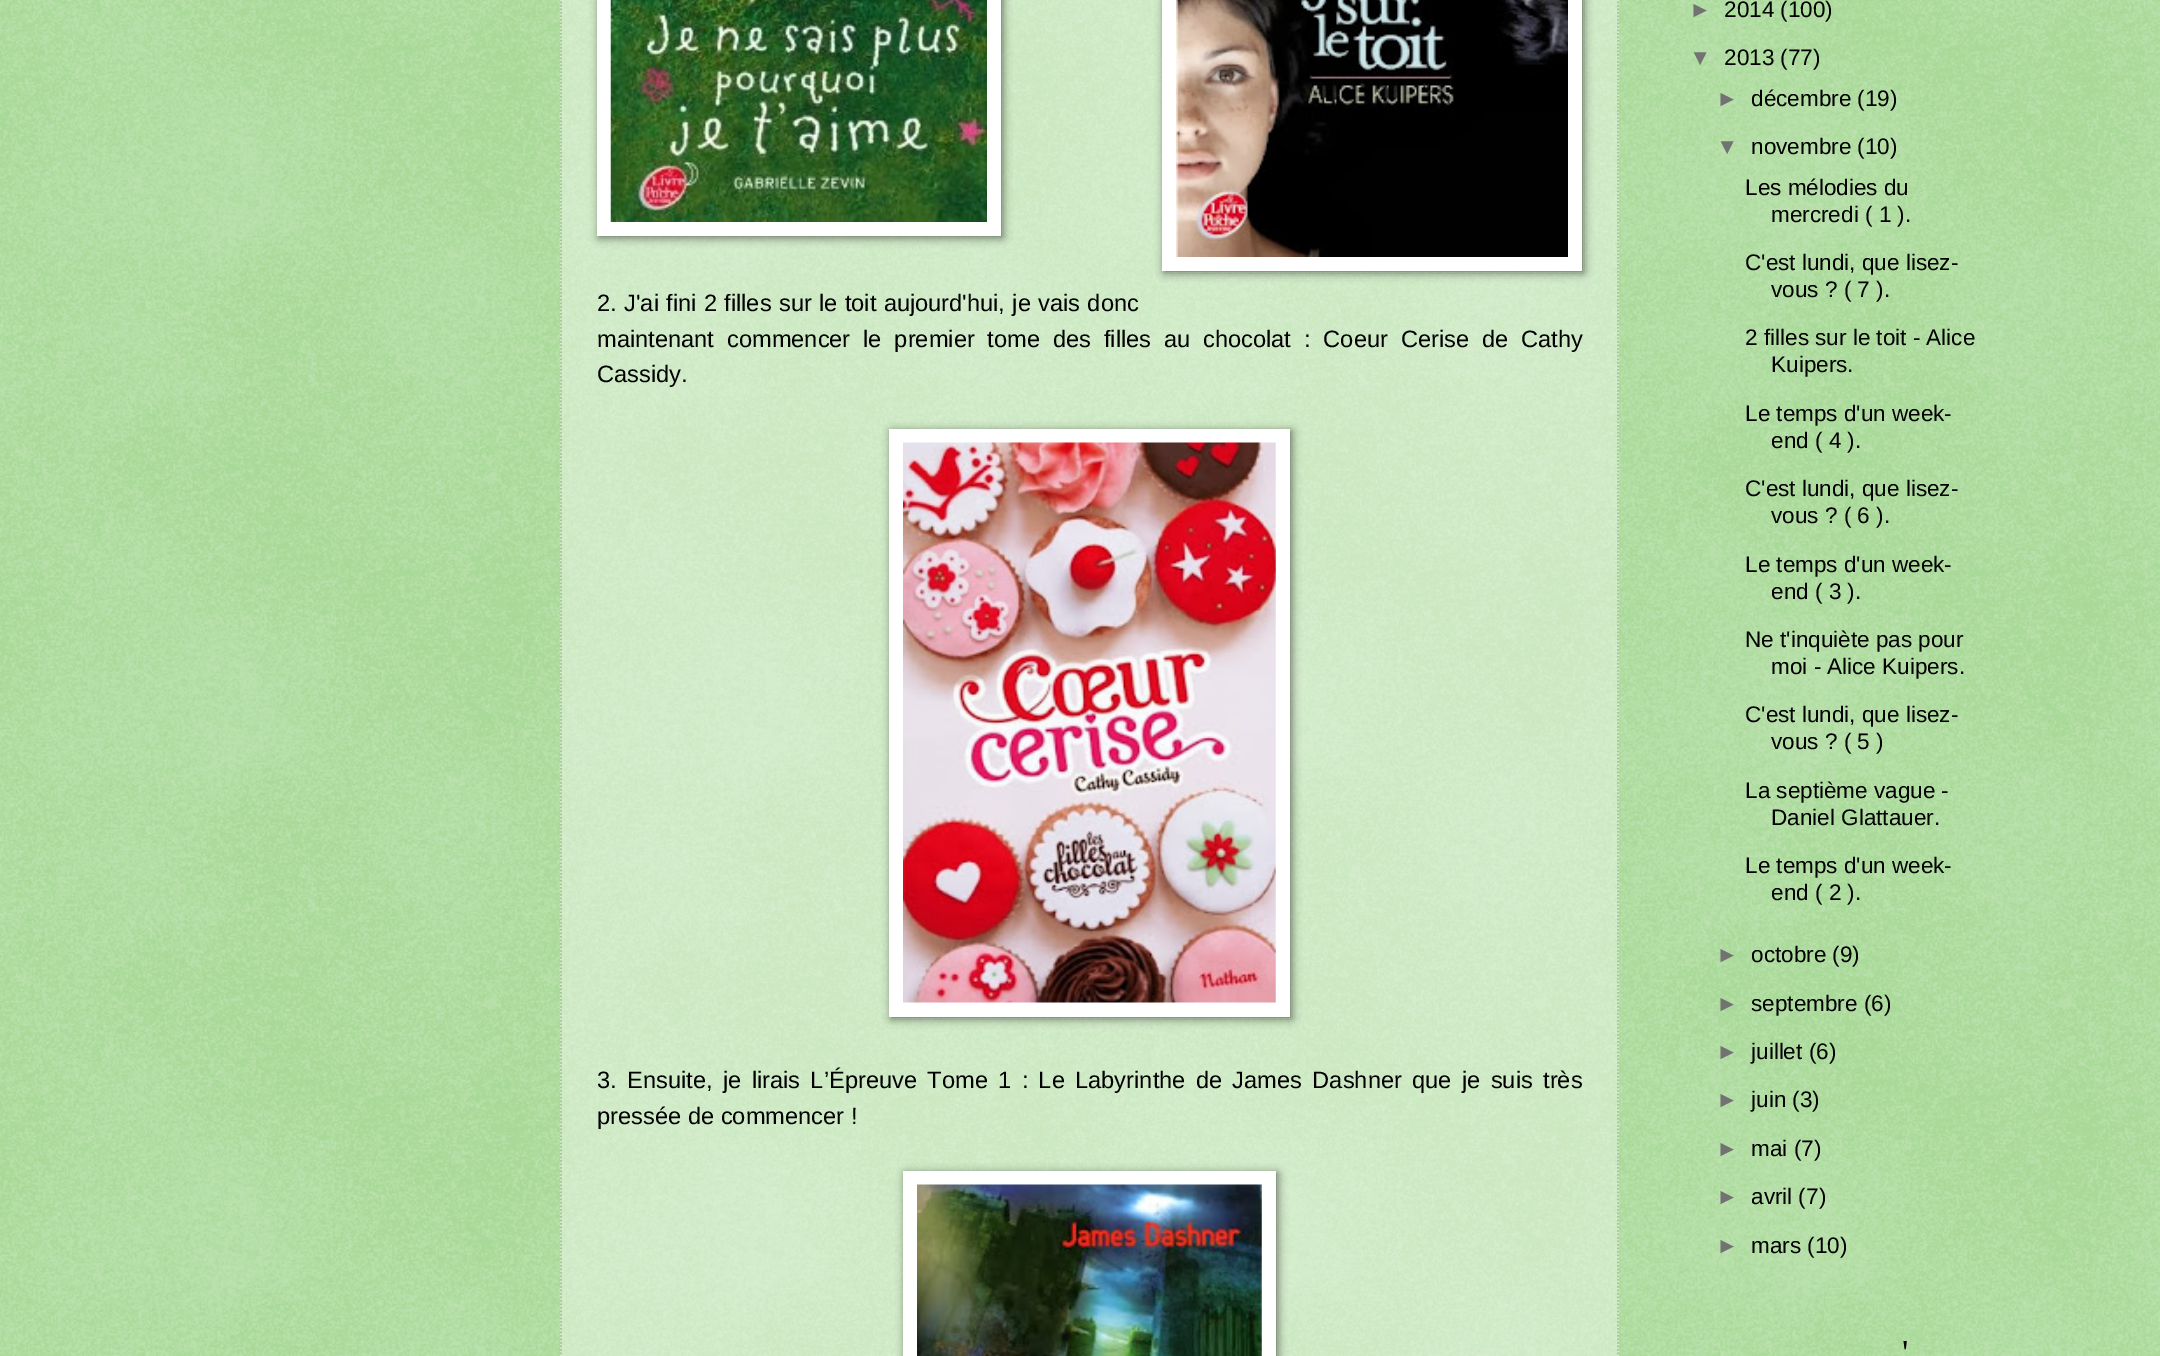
%!PS-Adobe-3.0
%%BoundingBox: 0 0 2160 1356
%%LanguageLevel: 3
%%Pages: 1
%%EndComments
%%BeginProlog
/setink { 3 { 255 div 3 1 roll } repeat setrgbcolor } def
/usefont { [ exch dup neg 0 0 3 -1 roll 0 0 ] selectfont } def
/drawtext { setink usefont moveto show } def
/fillbox { setink rectfill } def
/setalpha { dup .setfillconstantalpha .setstrokeconstantalpha } def
/rrect { 5 dict begin { /r /h /w /y /x } { exch def } forall
  x r add y moveto x w add y 2 copy h add r arct x w add y h add x 1 index r arct
  x y h add x y r arct x y 2 copy exch w add exch r arct closepath end } def
/softshadow { 12 dict begin { /a /b /q /h /w /y /x } { exch def } forall gsave /was 0 def
  9 -2 -9 { dup b mul 4 div /e exch def 1 sub .425 mul 2.718 exch exp 1 add a .99 .min exch div /now exch def
    1 1 now sub 1 was sub div sub setalpha /was now def
    w h .min e 2 mul add 0 gt { x e sub y e sub w e 2 mul add h e 2 mul add
      q e add b .6 mul add w h .min 2 div e add .min 0 .max rrect fill } if } for grestore end } def
/drawimage { 5 dict begin { /h /w /y /x /name } { exch def } forall
  gsave x y translate w h scale
  w h 8 [w 0 0 h 0 0] name (r) file false 3 colorimage grestore end } def
%%EndProlog
%%BeginSetup
<< /PageSize [2160 1356] /PageUsesTransparency true >> setpagedevice
%%EndSetup
%%Page: 1 1
0 .pushpdf14devicefilter
0 1356 translate 1 -1 scale
4 setmiterlimit
0 0 2160 1356 106 190 78 fillbox
(assets/img1.rgb) 0 0 2160 1356 drawimage
0.4 setalpha
560 0 1059 1356 255 255 255 fillbox
1 setalpha
165 202 150 setink
1.8 setlinewidth
[1.75 1.75] 0 setdash
1618 -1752 moveto 1618 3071 lineto stroke
561 -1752 moveto 561 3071 lineto stroke
0 0 0 setink
599 -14 404 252 0 4.5 0.5 softshadow
597 0 404 236 255 255 255 fillbox
(assets/img2.rgb) 610 0 377 222 drawimage
0 0 0 setink
1164 -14 420 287 0 4.5 0.5 softshadow
1162 0 420 271 255 255 255 fillbox
(assets/img3.rgb) 1176 0 392 257 drawimage
/LiberationSans-Regular 23.65 usefont
0 0 0 setink
597 311 moveto 0.75 0 32 (2. J'ai fini 2 filles sur le toit aujourd'hui, je vais donc) widthshow
597 347 moveto 6.25 0 32 (maintenant commencer le premier tome des filles au chocolat : Coeur Cerise de Cathy) widthshow
(Cassidy.) 597 382 /LiberationSans-Regular 23.65 0 0 0 drawtext
891 431 401 588 0 4.5 0.5 softshadow
889 429 401 588 255 255 255 fillbox
(assets/img4.rgb) 903 442 373 561 drawimage
0 0 0 setink
597 1088 moveto 3.75 0 32 (3. Ensuite, je lirais L’Épreuve Tome 1 : Le Labyrinthe de James Dashner que je suis très) widthshow
(pressée de commencer !) 597 1124 /LiberationSans-Regular 23.65 0 0 0 drawtext
905 1173 373 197 0 4.5 0.5 softshadow
903 1171 373 185 255 255 255 fillbox
(assets/img5.rgb) 917 1184 345 172 drawimage
(►) 1689 17 /LiberationSans-Regular 22.5 114 114 114 drawtext
(2014 \(100\)) 1724 17 /LiberationSans-Regular 22.5 0 0 0 drawtext
(▼) 1689 65 /LiberationSans-Regular 22.5 114 114 114 drawtext
(2013 \(77\)) 1724 65 /LiberationSans-Regular 22.5 0 0 0 drawtext
(►) 1716 106 /LiberationSans-Regular 22.5 114 114 114 drawtext
(décembre \(19\)) 1751 106 /LiberationSans-Regular 22.5 0 0 0 drawtext
(▼) 1716 154 /LiberationSans-Regular 22.5 114 114 114 drawtext
(novembre \(10\)) 1751 154 /LiberationSans-Regular 22.5 0 0 0 drawtext
(Les mélodies du) 1745 195 /LiberationSans-Regular 22.5 0 0 0 drawtext
(mercredi \( 1 \).) 1771 222 /LiberationSans-Regular 22.5 0 0 0 drawtext
(C'est lundi, que lisez-) 1745 270 /LiberationSans-Regular 22.5 0 0 0 drawtext
(vous ? \( 7 \).) 1771 297 /LiberationSans-Regular 22.5 0 0 0 drawtext
(2 filles sur le toit - Alice) 1745 345 /LiberationSans-Regular 22.5 0 0 0 drawtext
(Kuipers.) 1771 372 /LiberationSans-Regular 22.5 0 0 0 drawtext
(Le temps d'un week-) 1745 421 /LiberationSans-Regular 22.5 0 0 0 drawtext
(end \( 4 \).) 1771 448 /LiberationSans-Regular 22.5 0 0 0 drawtext
(C'est lundi, que lisez-) 1745 496 /LiberationSans-Regular 22.5 0 0 0 drawtext
(vous ? \( 6 \).) 1771 523 /LiberationSans-Regular 22.5 0 0 0 drawtext
(Le temps d'un week-) 1745 572 /LiberationSans-Regular 22.5 0 0 0 drawtext
(end \( 3 \).) 1771 599 /LiberationSans-Regular 22.5 0 0 0 drawtext
(Ne t'inquiète pas pour) 1745 647 /LiberationSans-Regular 22.5 0 0 0 drawtext
(moi - Alice Kuipers.) 1771 674 /LiberationSans-Regular 22.5 0 0 0 drawtext
(C'est lundi, que lisez-) 1745 722 /LiberationSans-Regular 22.5 0 0 0 drawtext
(vous ? \( 5 \)) 1771 749 /LiberationSans-Regular 22.5 0 0 0 drawtext
(La septième vague -) 1745 798 /LiberationSans-Regular 22.5 0 0 0 drawtext
(Daniel Glattauer.) 1771 825 /LiberationSans-Regular 22.5 0 0 0 drawtext
(Le temps d'un week-) 1745 873 /LiberationSans-Regular 22.5 0 0 0 drawtext
(end \( 2 \).) 1771 900 /LiberationSans-Regular 22.5 0 0 0 drawtext
(►) 1716 962 /LiberationSans-Regular 22.5 114 114 114 drawtext
(octobre \(9\)) 1751 962 /LiberationSans-Regular 22.5 0 0 0 drawtext
(►) 1716 1011 /LiberationSans-Regular 22.5 114 114 114 drawtext
(septembre \(6\)) 1751 1011 /LiberationSans-Regular 22.5 0 0 0 drawtext
(►) 1716 1059 /LiberationSans-Regular 22.5 114 114 114 drawtext
(juillet \(6\)) 1751 1059 /LiberationSans-Regular 22.5 0 0 0 drawtext
(►) 1716 1107 /LiberationSans-Regular 22.5 114 114 114 drawtext
(juin \(3\)) 1751 1107 /LiberationSans-Regular 22.5 0 0 0 drawtext
(►) 1716 1156 /LiberationSans-Regular 22.5 114 114 114 drawtext
(mai \(7\)) 1751 1156 /LiberationSans-Regular 22.5 0 0 0 drawtext
(►) 1716 1204 /LiberationSans-Regular 22.5 114 114 114 drawtext
(avril \(7\)) 1751 1204 /LiberationSans-Regular 22.5 0 0 0 drawtext
(►) 1716 1253 /LiberationSans-Regular 22.5 114 114 114 drawtext
(mars \(10\)) 1751 1253 /LiberationSans-Regular 22.5 0 0 0 drawtext
(') 1902 1364 /LiberationSerif-Regular 35 0 0 0 drawtext
.poppdf14devicefilter showpage
%%EOF
